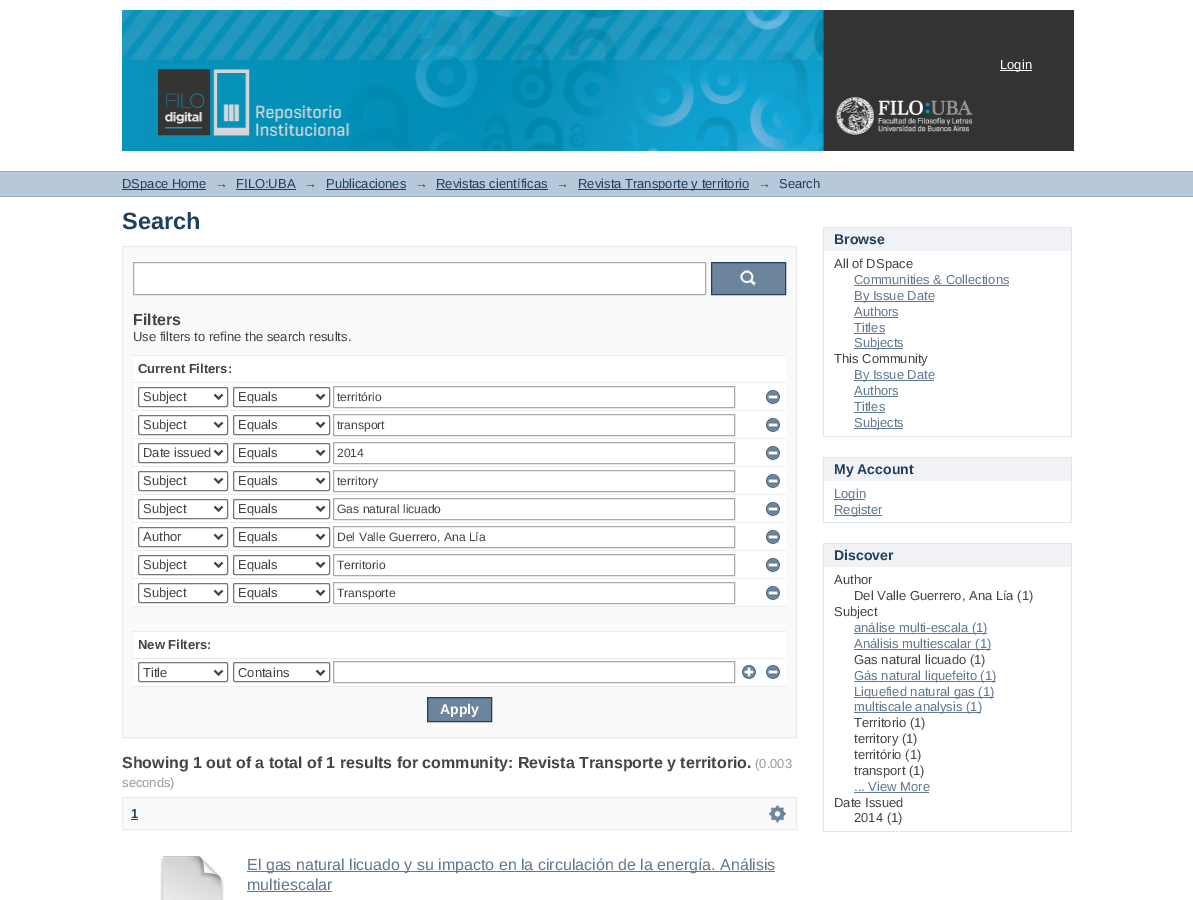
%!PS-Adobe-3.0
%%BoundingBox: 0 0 1193 900
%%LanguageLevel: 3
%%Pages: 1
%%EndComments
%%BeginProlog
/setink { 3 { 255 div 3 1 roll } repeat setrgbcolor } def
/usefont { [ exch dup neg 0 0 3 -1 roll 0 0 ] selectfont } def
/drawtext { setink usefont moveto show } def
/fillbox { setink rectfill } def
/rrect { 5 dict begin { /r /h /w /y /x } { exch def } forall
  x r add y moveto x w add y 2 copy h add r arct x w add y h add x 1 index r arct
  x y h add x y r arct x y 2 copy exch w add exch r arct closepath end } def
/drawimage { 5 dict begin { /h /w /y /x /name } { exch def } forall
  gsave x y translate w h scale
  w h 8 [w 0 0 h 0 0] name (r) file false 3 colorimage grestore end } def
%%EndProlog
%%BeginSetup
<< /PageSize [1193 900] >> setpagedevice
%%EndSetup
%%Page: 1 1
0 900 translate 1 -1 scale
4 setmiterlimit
0 0 1193 900 255 255 255 fillbox
(assets/img1.rgb) 122 10 952 141 drawimage
1000 70 32 1 255 255 255 fillbox
(Login) 1000 69 /LiberationSans-Regular 13 255 255 255 drawtext
0 172 1193 24 182 200 217 fillbox
0 171 1193 1 156 172 186 fillbox
0 196 1193 1 156 172 186 fillbox
122 189 84 1 31 63 94 fillbox
(DSpace Home) 122 188 /LiberationSans-Regular 13 31 63 94 drawtext
(→) 215 188 /LiberationSans-Regular 13 31 63 94 drawtext
(FILO:UBA) 236 188 /LiberationSans-Regular 13 31 63 94 drawtext
236 189 60 1 31 63 94 fillbox
(→) 304 188 /LiberationSans-Regular 13 31 63 94 drawtext
(Publicaciones) 326 188 /LiberationSans-Regular 13 31 63 94 drawtext
326 189 80 1 31 63 94 fillbox
(→) 415 188 /LiberationSans-Regular 13 31 63 94 drawtext
(Revistas científicas) 436 188 /LiberationSans-Regular 13 31 63 94 drawtext
436 189 112 1 31 63 94 fillbox
(→) 556 188 /LiberationSans-Regular 13 31 63 94 drawtext
578 189 171 1 31 63 94 fillbox
(Revista Transporte y territorio) 578 188 /LiberationSans-Regular 13 31 63 94 drawtext
(→) 758 188 /LiberationSans-Regular 13 31 63 94 drawtext
(Search) 779 188 /LiberationSans-Regular 13 31 63 94 drawtext
(Search) 122 229 /LiberationSans-Bold 23.5 31 63 94 drawtext
250 250 250 setink
122.5 246.5 moveto 796.5 246.5 lineto 796.5 737.5 lineto 122.5 737.5 lineto closepath gsave fill grestore
235 235 235 setink
stroke
255 255 255 setink
133.5 262.5 moveto 705.5 262.5 lineto 705.5 294.5 lineto 133.5 294.5 lineto closepath gsave fill grestore
170 170 170 setink
stroke
712 263 73 31 109 133 156 fillbox
(assets/img2.rgb) 740 270 16 16 drawimage
31 63 94 setink
711.5 262.5 74 32 rectstroke
(Filters) 133 325 /LiberationSans-Bold 16 68 68 68 drawtext
(Use filters to refine the search results.) 133 341 /LiberationSans-Regular 13 68 68 68 drawtext
133 356 653 330 255 255 255 fillbox
132 355 654 1 235 235 235 fillbox
(Current Filters:) 138 373 /LiberationSans-Bold 13 68 68 68 drawtext
132 382 654 1 235 235 235 fillbox
118 118 118 setink
138.5 387.5 89 19 1.5 rrect stroke
68 68 68 setink
2 setlinewidth
214.5 394.5 moveto 218.5 398.5 lineto 222.5 394.5 lineto stroke
(Subject) 143 401 /LiberationSans-Regular 13 68 68 68 drawtext
118 118 118 setink
1 setlinewidth
233.5 387.5 96 19 1.5 rrect stroke
68 68 68 setink
2 setlinewidth
316.5 394.5 moveto 320.5 398.5 lineto 324.5 394.5 lineto stroke
(Equals) 238 401 /LiberationSans-Regular 13 68 68 68 drawtext
170 170 170 setink
1 setlinewidth
333.5 386.5 401 21 rectstroke
(território) 337 401 /LiberationSans-Regular 12.1 68 68 68 drawtext
(assets/img3.rgb) 766 390 14 14 drawimage
132 410 654 1 235 235 235 fillbox
118 118 118 setink
138.5 415.5 89 19 1.5 rrect stroke
68 68 68 setink
2 setlinewidth
214.5 422.5 moveto 218.5 426.5 lineto 222.5 422.5 lineto stroke
(Subject) 143 429 /LiberationSans-Regular 13 68 68 68 drawtext
118 118 118 setink
1 setlinewidth
233.5 415.5 96 19 1.5 rrect stroke
68 68 68 setink
2 setlinewidth
316.5 422.5 moveto 320.5 426.5 lineto 324.5 422.5 lineto stroke
(Equals) 238 429 /LiberationSans-Regular 13 68 68 68 drawtext
170 170 170 setink
1 setlinewidth
333.5 414.5 401 21 rectstroke
(transport) 337 429 /LiberationSans-Regular 12.1 68 68 68 drawtext
(assets/img3.rgb) 766 418 14 14 drawimage
132 438 654 1 235 235 235 fillbox
118 118 118 setink
138.5 443.5 89 19 1.5 rrect stroke
68 68 68 setink
2 setlinewidth
214.5 450.5 moveto 218.5 454.5 lineto 222.5 450.5 lineto stroke
(Date issued) 143 457 /LiberationSans-Regular 13 68 68 68 drawtext
118 118 118 setink
1 setlinewidth
233.5 443.5 96 19 1.5 rrect stroke
68 68 68 setink
2 setlinewidth
316.5 450.5 moveto 320.5 454.5 lineto 324.5 450.5 lineto stroke
(Equals) 238 457 /LiberationSans-Regular 13 68 68 68 drawtext
170 170 170 setink
1 setlinewidth
333.5 442.5 401 21 rectstroke
(2014) 337 457 /LiberationSans-Regular 12.1 68 68 68 drawtext
(assets/img3.rgb) 766 446 14 14 drawimage
132 466 654 1 235 235 235 fillbox
118 118 118 setink
138.5 471.5 89 19 1.5 rrect stroke
68 68 68 setink
2 setlinewidth
214.5 478.5 moveto 218.5 482.5 lineto 222.5 478.5 lineto stroke
(Subject) 143 485 /LiberationSans-Regular 13 68 68 68 drawtext
118 118 118 setink
1 setlinewidth
233.5 471.5 96 19 1.5 rrect stroke
68 68 68 setink
2 setlinewidth
316.5 478.5 moveto 320.5 482.5 lineto 324.5 478.5 lineto stroke
(Equals) 238 485 /LiberationSans-Regular 13 68 68 68 drawtext
170 170 170 setink
1 setlinewidth
333.5 470.5 401 21 rectstroke
(territory) 337 485 /LiberationSans-Regular 12.1 68 68 68 drawtext
(assets/img3.rgb) 766 474 14 14 drawimage
132 494 654 1 235 235 235 fillbox
118 118 118 setink
138.5 499.5 89 19 1.5 rrect stroke
68 68 68 setink
2 setlinewidth
214.5 506.5 moveto 218.5 510.5 lineto 222.5 506.5 lineto stroke
(Subject) 143 513 /LiberationSans-Regular 13 68 68 68 drawtext
118 118 118 setink
1 setlinewidth
233.5 499.5 96 19 1.5 rrect stroke
68 68 68 setink
2 setlinewidth
316.5 506.5 moveto 320.5 510.5 lineto 324.5 506.5 lineto stroke
(Equals) 238 513 /LiberationSans-Regular 13 68 68 68 drawtext
170 170 170 setink
1 setlinewidth
333.5 498.5 401 21 rectstroke
(Gas natural licuado) 337 513 /LiberationSans-Regular 12.1 68 68 68 drawtext
(assets/img3.rgb) 766 502 14 14 drawimage
132 522 654 1 235 235 235 fillbox
118 118 118 setink
138.5 527.5 89 19 1.5 rrect stroke
68 68 68 setink
2 setlinewidth
214.5 534.5 moveto 218.5 538.5 lineto 222.5 534.5 lineto stroke
(Author) 143 541 /LiberationSans-Regular 13 68 68 68 drawtext
118 118 118 setink
1 setlinewidth
233.5 527.5 96 19 1.5 rrect stroke
68 68 68 setink
2 setlinewidth
316.5 534.5 moveto 320.5 538.5 lineto 324.5 534.5 lineto stroke
(Equals) 238 541 /LiberationSans-Regular 13 68 68 68 drawtext
170 170 170 setink
1 setlinewidth
333.5 526.5 401 21 rectstroke
(Del Valle Guerrero, Ana Lía) 337 541 /LiberationSans-Regular 12.1 68 68 68 drawtext
(assets/img3.rgb) 766 530 14 14 drawimage
132 550 654 1 235 235 235 fillbox
118 118 118 setink
138.5 555.5 89 19 1.5 rrect stroke
68 68 68 setink
2 setlinewidth
214.5 562.5 moveto 218.5 566.5 lineto 222.5 562.5 lineto stroke
(Subject) 143 569 /LiberationSans-Regular 13 68 68 68 drawtext
118 118 118 setink
1 setlinewidth
233.5 555.5 96 19 1.5 rrect stroke
68 68 68 setink
2 setlinewidth
316.5 562.5 moveto 320.5 566.5 lineto 324.5 562.5 lineto stroke
(Equals) 238 569 /LiberationSans-Regular 13 68 68 68 drawtext
170 170 170 setink
1 setlinewidth
333.5 554.5 401 21 rectstroke
(Territorio) 337 569 /LiberationSans-Regular 12.1 68 68 68 drawtext
(assets/img3.rgb) 766 558 14 14 drawimage
132 578 654 1 235 235 235 fillbox
118 118 118 setink
138.5 583.5 89 19 1.5 rrect stroke
68 68 68 setink
2 setlinewidth
214.5 590.5 moveto 218.5 594.5 lineto 222.5 590.5 lineto stroke
(Subject) 143 597 /LiberationSans-Regular 13 68 68 68 drawtext
118 118 118 setink
1 setlinewidth
233.5 583.5 96 19 1.5 rrect stroke
68 68 68 setink
2 setlinewidth
316.5 590.5 moveto 320.5 594.5 lineto 324.5 590.5 lineto stroke
(Equals) 238 597 /LiberationSans-Regular 13 68 68 68 drawtext
170 170 170 setink
1 setlinewidth
333.5 582.5 401 21 rectstroke
(Transporte) 337 597 /LiberationSans-Regular 12.1 68 68 68 drawtext
(assets/img3.rgb) 766 586 14 14 drawimage
133 607 653 24 250 250 250 fillbox
132 606 654 1 235 235 235 fillbox
132 631 654 1 235 235 235 fillbox
(New Filters:) 138 649 /LiberationSans-Bold 13 68 68 68 drawtext
132 658 654 1 235 235 235 fillbox
118 118 118 setink
138.5 662.5 89 19 1.5 rrect stroke
68 68 68 setink
2 setlinewidth
214.5 670.5 moveto 218.5 674.5 lineto 222.5 670.5 lineto stroke
(Title) 143 677 /LiberationSans-Regular 13 68 68 68 drawtext
118 118 118 setink
1 setlinewidth
233.5 662.5 96 19 1.5 rrect stroke
68 68 68 setink
2 setlinewidth
316.5 670.5 moveto 320.5 674.5 lineto 324.5 670.5 lineto stroke
(Contains) 238 677 /LiberationSans-Regular 13 68 68 68 drawtext
170 170 170 setink
1 setlinewidth
333.5 661.5 401 21 rectstroke
(assets/img4.rgb) 742 665 14 14 drawimage
(assets/img3.rgb) 766 665 14 14 drawimage
132 686 654 1 235 235 235 fillbox
109 133 156 setink
427.5 697.5 moveto 491.5 697.5 lineto 491.5 721.5 lineto 427.5 721.5 lineto closepath gsave fill grestore
31 63 94 setink
stroke
(Apply) 440 714 /LiberationSans-Bold 14 255 255 255 drawtext
(Showing 1 out of a total of 1 results for community: Revista Transporte y territorio.) 122 768 /LiberationSans-Bold 16 68 68 68 drawtext
(\(0.003) 755 768 /LiberationSans-Regular 13 153 153 153 drawtext
(seconds\)) 122 787 /LiberationSans-Regular 13 153 153 153 drawtext
250 250 250 setink
122.5 797.5 moveto 796.5 797.5 lineto 796.5 829.5 lineto 122.5 829.5 lineto closepath gsave fill grestore
235 235 235 setink
stroke
(1) 131 818 /LiberationSans-Bold 13 31 63 94 drawtext
131 819 7 1 31 63 94 fillbox
(assets/img5.rgb) 769 805 17 18 drawimage
(assets/img6.rgb) 160 856 64 44 drawimage
247 871 528 1 96 120 144 fillbox
(El gas natural licuado y su impacto en la circulación de la energía. Análisis) 247 870 /LiberationSans-Regular 16 96 120 144 drawtext
(multiescalar) 247 890 /LiberationSans-Regular 16 96 120 144 drawtext
247 891 85 1 96 120 144 fillbox
824 228 247 23 240 242 245 fillbox
823 227 249 1 216 232 235 fillbox
1071 227 1 210 216 232 235 fillbox
823 227 1 24 216 232 235 fillbox
(Browse) 834 244 /LiberationSans-Bold 14 31 63 94 drawtext
823 436 249 1 216 232 235 fillbox
823 251 1 186 216 232 235 fillbox
(All of DSpace) 834 268 /LiberationSans-Regular 13 68 68 68 drawtext
(Communities & Collections) 854 284 /LiberationSans-Regular 13 96 120 144 drawtext
854 285 155 1 96 120 144 fillbox
854 301 80 1 96 120 144 fillbox
(By Issue Date) 854 300 /LiberationSans-Regular 13 96 120 144 drawtext
(Authors) 854 316 /LiberationSans-Regular 13 96 120 144 drawtext
854 317 44 1 96 120 144 fillbox
(Titles) 854 332 /LiberationSans-Regular 13 96 120 144 drawtext
854 333 31 1 96 120 144 fillbox
854 348 49 1 96 120 144 fillbox
(Subjects) 854 347 /LiberationSans-Regular 13 96 120 144 drawtext
(This Community) 834 363 /LiberationSans-Regular 13 68 68 68 drawtext
854 380 80 1 96 120 144 fillbox
(By Issue Date) 854 379 /LiberationSans-Regular 13 96 120 144 drawtext
(Authors) 854 395 /LiberationSans-Regular 13 96 120 144 drawtext
854 396 44 1 96 120 144 fillbox
(Titles) 854 411 /LiberationSans-Regular 13 96 120 144 drawtext
854 412 31 1 96 120 144 fillbox
854 428 49 1 96 120 144 fillbox
(Subjects) 854 427 /LiberationSans-Regular 13 96 120 144 drawtext
824 458 247 23 240 242 245 fillbox
823 457 249 1 216 232 235 fillbox
1071 457 1 66 216 232 235 fillbox
823 457 1 24 216 232 235 fillbox
(My Account) 834 474 /LiberationSans-Bold 14 31 63 94 drawtext
823 522 249 1 216 232 235 fillbox
823 481 1 42 216 232 235 fillbox
834 499 31 1 96 120 144 fillbox
(Login) 834 498 /LiberationSans-Regular 13 96 120 144 drawtext
834 515 48 1 96 120 144 fillbox
(Register) 834 514 /LiberationSans-Regular 13 96 120 144 drawtext
824 544 247 23 240 242 245 fillbox
823 543 249 1 216 232 235 fillbox
1071 543 1 289 216 232 235 fillbox
823 543 1 24 216 232 235 fillbox
(Discover) 834 560 /LiberationSans-Bold 14 31 63 94 drawtext
823 831 249 1 216 232 235 fillbox
823 567 1 265 216 232 235 fillbox
(Author) 834 584 /LiberationSans-Regular 13 68 68 68 drawtext
(Del Valle Guerrero, Ana Lía \(1\)) 854 600 /LiberationSans-Regular 13 68 68 68 drawtext
(Subject) 834 616 /LiberationSans-Regular 13 68 68 68 drawtext
854 633 133 1 96 120 144 fillbox
(análise multi-escala \(1\)) 854 632 /LiberationSans-Regular 13 96 120 144 drawtext
854 649 137 1 96 120 144 fillbox
(Análisis multiescalar \(1\)) 854 648 /LiberationSans-Regular 13 96 120 144 drawtext
(Gas natural licuado \(1\)) 854 664 /LiberationSans-Regular 13 68 68 68 drawtext
854 681 142 1 96 120 144 fillbox
(Gás natural liquefeito \(1\)) 854 680 /LiberationSans-Regular 13 96 120 144 drawtext
854 697 140 1 96 120 144 fillbox
(Liquefied natural gas \(1\)) 854 696 /LiberationSans-Regular 13 96 120 144 drawtext
854 712 127 1 96 120 144 fillbox
(multiscale analysis \(1\)) 854 711 /LiberationSans-Regular 13 96 120 144 drawtext
(Territorio \(1\)) 854 727 /LiberationSans-Regular 13 68 68 68 drawtext
(territory \(1\)) 854 743 /LiberationSans-Regular 13 68 68 68 drawtext
(território \(1\)) 854 759 /LiberationSans-Regular 13 68 68 68 drawtext
(transport \(1\)) 854 775 /LiberationSans-Regular 13 68 68 68 drawtext
(... View More) 854 791 /LiberationSans-Regular 13 96 120 144 drawtext
854 792 75 1 96 120 144 fillbox
(Date Issued) 834 807 /LiberationSans-Regular 13 68 68 68 drawtext
(2014 \(1\)) 854 822 /LiberationSans-Regular 13 68 68 68 drawtext
showpage
%%EOF
